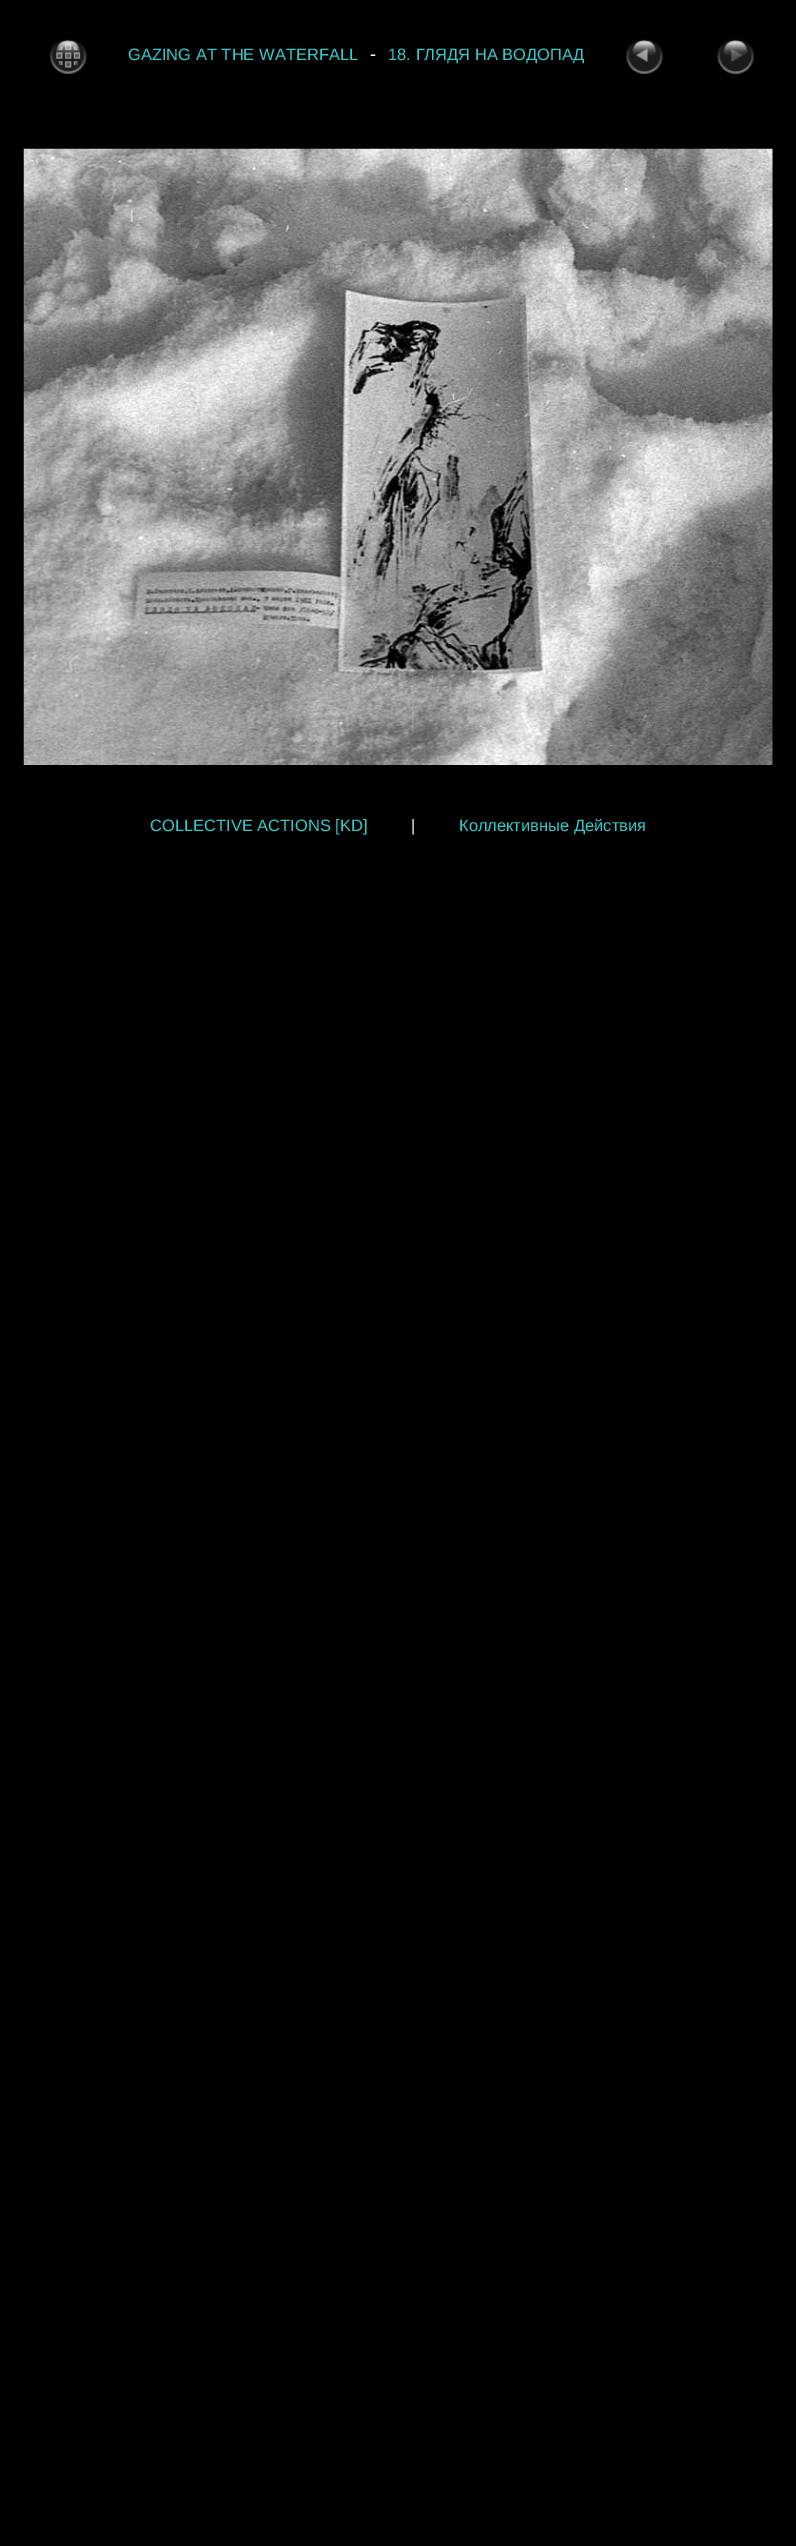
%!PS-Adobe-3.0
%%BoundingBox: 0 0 796 2546
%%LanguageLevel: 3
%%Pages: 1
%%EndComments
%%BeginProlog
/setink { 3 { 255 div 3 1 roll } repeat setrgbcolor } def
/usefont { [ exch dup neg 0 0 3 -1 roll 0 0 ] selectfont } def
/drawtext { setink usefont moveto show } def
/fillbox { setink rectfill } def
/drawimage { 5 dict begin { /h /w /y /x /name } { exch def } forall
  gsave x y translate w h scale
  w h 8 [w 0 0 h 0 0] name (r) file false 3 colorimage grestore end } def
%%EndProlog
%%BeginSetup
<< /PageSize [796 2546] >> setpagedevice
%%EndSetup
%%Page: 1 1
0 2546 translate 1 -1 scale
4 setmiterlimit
0 0 796 2546 0 0 0 fillbox
(assets/img1.rgb) 50 39 37 35 drawimage
(GAZING AT THE WATERFALL) 128 60 /LiberationSans-Regular 16.5 51 204 204 drawtext
(-) 370 60 /LiberationSans-Regular 18 254 254 254 drawtext
(18. ГЛЯДЯ НА ВОДОПАД) 388 60 /LiberationSans-Regular 16.5 51 204 204 drawtext
(assets/img2.rgb) 626 39 37 35 drawimage
(assets/img3.rgb) 717 39 37 35 drawimage
(assets/img4.rgb) 23 148 750 617 drawimage
(COLLECTIVE ACTIONS [KD]) 150 831 /LiberationSans-Regular 16.5 51 204 204 drawtext
(|) 411 831 /LiberationSans-Regular 16.5 254 254 254 drawtext
(Коллективные Действия) 459 831 /LiberationSans-Regular 16.5 51 204 204 drawtext
showpage
%%EOF
